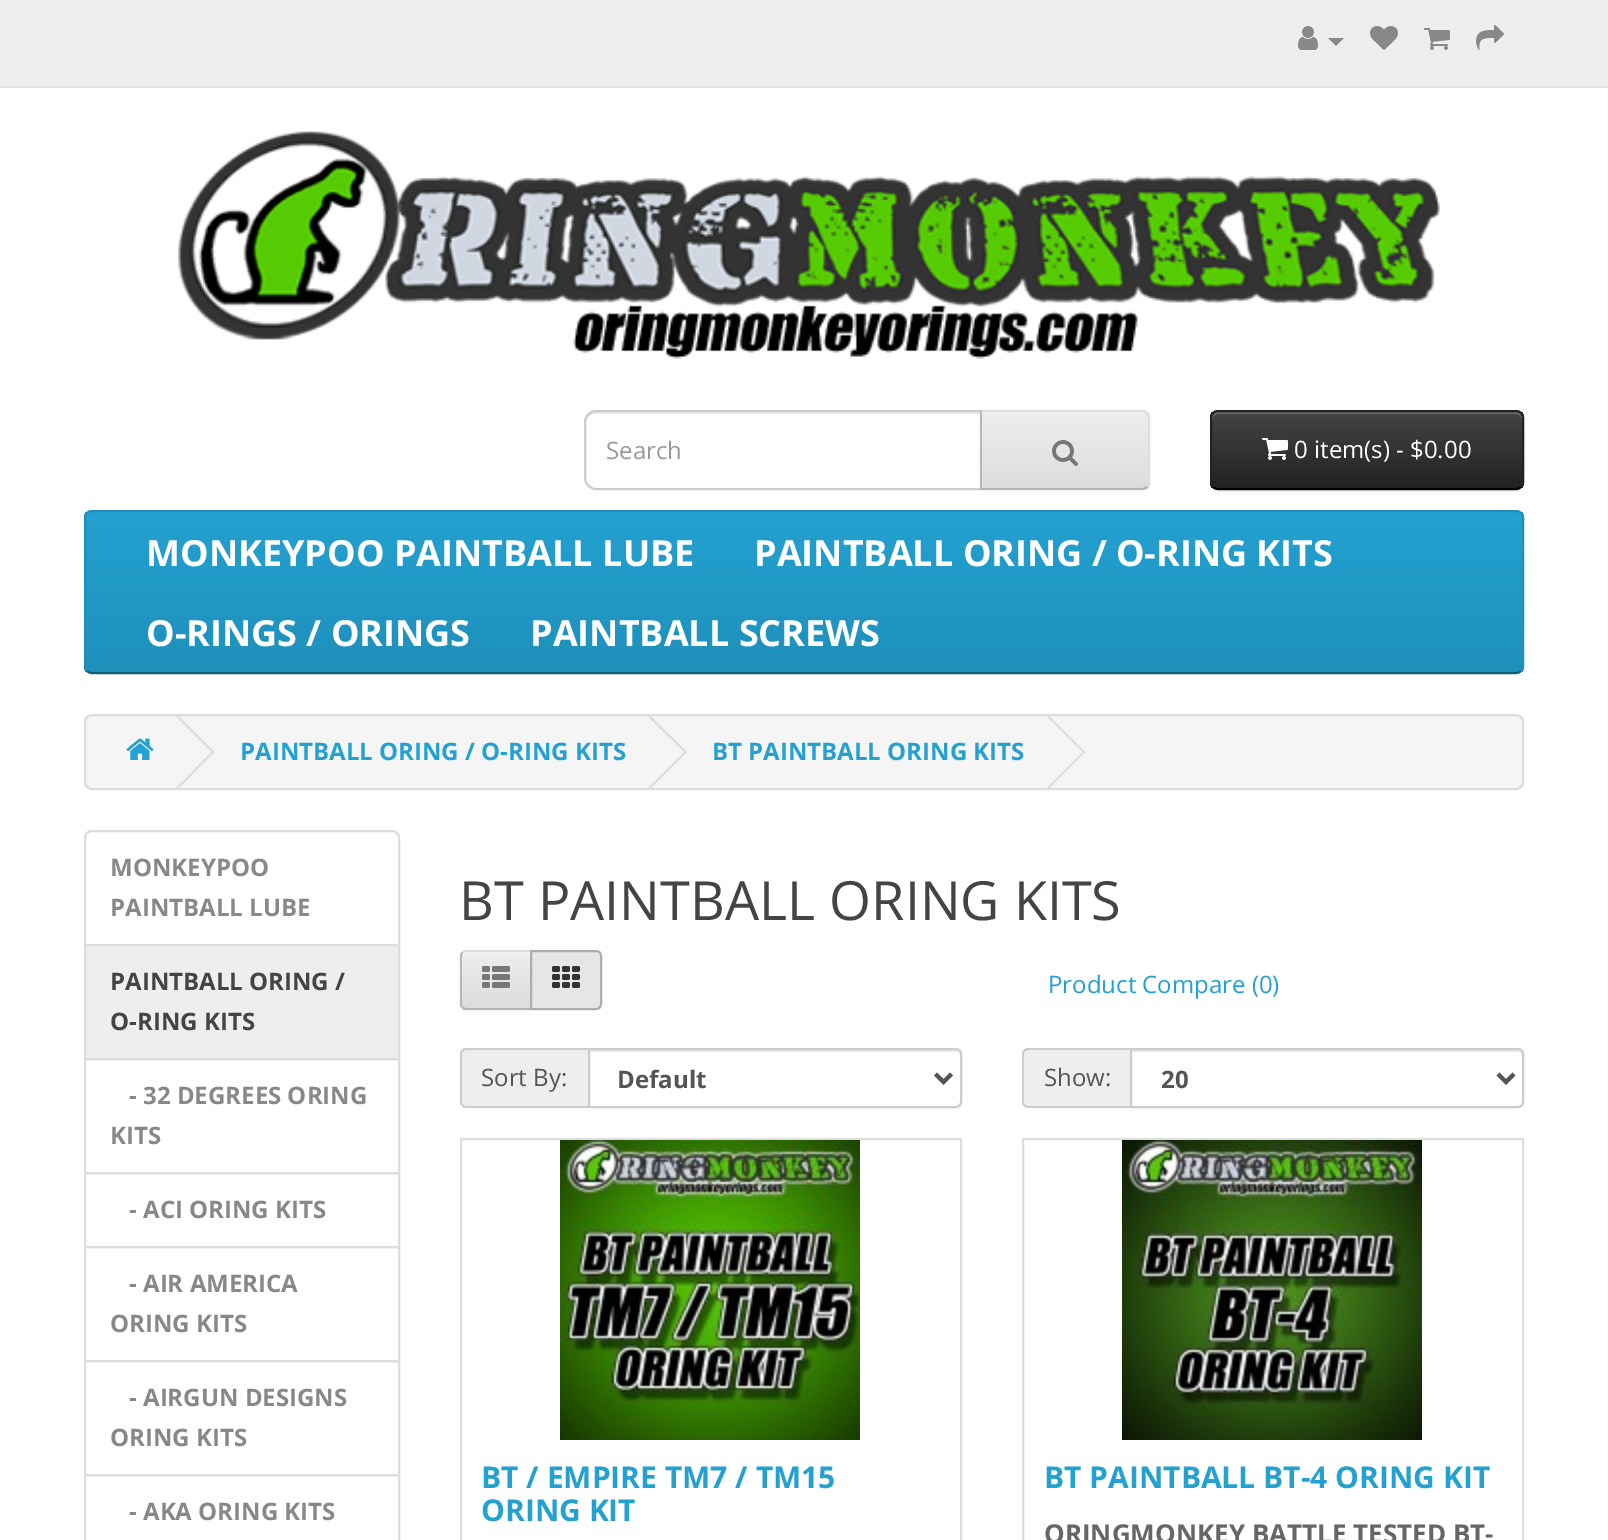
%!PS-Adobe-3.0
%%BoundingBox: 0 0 1608 1540
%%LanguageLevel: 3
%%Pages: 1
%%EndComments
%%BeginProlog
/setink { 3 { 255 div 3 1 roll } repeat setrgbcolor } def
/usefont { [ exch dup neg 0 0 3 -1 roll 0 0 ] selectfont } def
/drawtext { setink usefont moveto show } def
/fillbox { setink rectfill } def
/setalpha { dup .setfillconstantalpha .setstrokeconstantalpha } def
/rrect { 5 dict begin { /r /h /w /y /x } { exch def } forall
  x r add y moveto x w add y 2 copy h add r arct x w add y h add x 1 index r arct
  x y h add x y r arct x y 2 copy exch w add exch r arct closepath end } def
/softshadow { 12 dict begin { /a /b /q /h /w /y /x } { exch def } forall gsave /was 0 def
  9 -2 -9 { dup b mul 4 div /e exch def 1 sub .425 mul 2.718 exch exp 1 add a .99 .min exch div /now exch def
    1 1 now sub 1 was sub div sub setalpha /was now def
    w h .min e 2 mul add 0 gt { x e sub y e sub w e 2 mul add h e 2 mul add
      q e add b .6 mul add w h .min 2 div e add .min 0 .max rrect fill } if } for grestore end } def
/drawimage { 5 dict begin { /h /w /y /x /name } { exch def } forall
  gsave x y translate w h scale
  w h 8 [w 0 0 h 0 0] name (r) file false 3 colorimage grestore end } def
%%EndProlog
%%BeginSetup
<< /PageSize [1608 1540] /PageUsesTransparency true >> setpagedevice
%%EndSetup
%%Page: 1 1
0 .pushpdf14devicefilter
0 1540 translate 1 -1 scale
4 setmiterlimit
0 0 1608 1540 255 255 255 fillbox
0 0 1608 86 238 238 238 fillbox
0 86 1608 2 226 226 226 fillbox
(assets/img1.rgb) 1298 26 20 24 drawimage
136 136 136 setink
1328 38 moveto 1344 38 lineto 1336 46 lineto closepath fill
(assets/img2.rgb) 1370 26 28 24 drawimage
(assets/img3.rgb) 1424 28 26 22 drawimage
(assets/img4.rgb) 1476 25 28 25 drawimage
(assets/img5.rgb) 177 131 1265 228 drawimage
236 236 236 setink
596 414 moveto 980 414 lineto 980 412 lineto 594 412 lineto 588 413 586 419 586 424 curveto 586 418 590 414 596 414 curveto closepath fill
204 204 204 setink
2 setlinewidth
596 411 moveto 981 411 lineto 981 489 lineto 596 489 lineto 590 489 585 484 585 478 curveto 585 422 lineto 585 416 590 411 596 411 curveto closepath stroke
(Search) 606 459 /OpenSans-Regular 24 153 153 153 drawtext
0 0 0 setink
980 412 170 80 8 2 0.05 softshadow
gsave
980 410 moveto 1142 410 lineto 1146.5 410 1150 413.5 1150 418 curveto 1150 482 lineto 1150 486.5 1146.5 490 1142 490 curveto 980 490 lineto closepath clip newpath
gsave 982 412 moveto 1150 412 lineto 1150 488 lineto 982 488 lineto closepath clip newpath
<< /ShadingType 2 /ColorSpace /DeviceRGB /Coords [1065 412 1065 488] /Extend [true true] /Function << /FunctionType 2 /Domain [0 1] /C0 [0.933 0.933 0.933] /C1 [0.867 0.867 0.867] /N 1 >> >> shfill grestore
grestore
241 241 241 setink
982 414 moveto 1142 414 lineto 1145 414 1148 417 1148 420 curveto 1148 418 lineto 1148 415 1145 412 1142 412 curveto 982 412 lineto closepath fill
221 221 221 setink
980 410 moveto 982 412 lineto 1143 412 lineto 1146 414 lineto 1148 412 lineto 1146 411 1144 410 1142 410 curveto closepath fill
1150 482 moveto 1150 418 lineto 1150 416 1149 414 1148 412 curveto 1146 414 lineto 1147 415 1148 416 1148 418 curveto 1148 482 lineto 1148 484 1147 485 1146 486 curveto 1148 488 lineto 1149 486 1150 484 1150 482 curveto closepath fill
179 179 179 setink
1142 490 moveto 1144 490 1146 489 1148 488 curveto 1146 486 lineto 1143 488 lineto 982 488 lineto 980 490 lineto closepath fill
183 183 183 setink
980 410 moveto 980 490 lineto 982 488 lineto 982 412 lineto closepath fill
(assets/img6.rgb) 1052 440 26 26 drawimage
0 0 0 setink
1210 412 314 80 8 2 0.05 softshadow
gsave
1210 410 314 80 8 rrect clip newpath
gsave 1210 412 moveto 1524 412 lineto 1524 488 lineto 1210 488 lineto closepath clip newpath
<< /ShadingType 2 /ColorSpace /DeviceRGB /Coords [1367 412 1367 488] /Extend [true true] /Function << /FunctionType 2 /Domain [0 1] /C0 [0.267 0.267 0.267] /C1 [0.133 0.133 0.133] /N 1 >> >> shfill grestore
grestore
105 105 105 setink
1218 414 moveto 1516 414 lineto 1519 414 1522 417 1522 420 curveto 1522 418 lineto 1522 415 1519 412 1516 412 curveto 1218 412 lineto 1215 412 1212 415 1212 418 curveto 1212 420 lineto 1212 417 1215 414 1218 414 curveto closepath fill
0 0 0 setink
1521 487 moveto 1519.5 488.5 1518 489 1516 489 curveto 1218 489 lineto 1216 489 1214.5 488.5 1213 487 curveto stroke
34 34 34 setink
1213 487 moveto 1211.5 485.5 1211 484 1211 482 curveto 1211 418 lineto 1211 416 1211.5 414.5 1213 413 curveto 1214.5 411.5 1216 411 1218 411 curveto 1516 411 lineto 1518 411 1519.5 411.5 1521 413 curveto 1522.5 414.5 1523 416 1523 418 curveto 1523 482 lineto 1523 484 1522.5 485.5 1521 487 curveto stroke
(assets/img7.rgb) 1262 438 26 22 drawimage
(0 item\(s\) - $0.00) 1294 458 /OpenSans-Regular 24 255 255 255 drawtext
gsave
84 510 1440 164 8 rrect clip newpath
gsave 84 512 moveto 1524 512 lineto 1524 672 lineto 84 672 lineto closepath clip newpath
<< /ShadingType 2 /ColorSpace /DeviceRGB /Coords [804 512 804 672] /Extend [true true] /Function << /FunctionType 2 /Domain [0 1] /C0 [0.137 0.631 0.82] /C1 [0.122 0.565 0.733] /N 1 >> >> shfill grestore
grestore
20 94 122 setink
1521 671 moveto 1519.5 672.5 1518 673 1516 673 curveto 92 673 lineto 90 673 88.5 672.5 87 671 curveto stroke
31 144 187 setink
87 671 moveto 85.5 669.5 85 668 85 666 curveto 85 518 lineto 85 516 85.5 514.5 87 513 curveto 88.5 511.5 90 511 92 511 curveto 1516 511 lineto 1518 511 1519.5 511.5 1521 513 curveto 1522.5 514.5 1523 516 1523 518 curveto 1523 666 lineto 1523 668 1522.5 669.5 1521 671 curveto stroke
(MONKEYPOO PAINTBALL LUBE) 146 566 /OpenSans-Bold 36 255 255 255 drawtext
(PAINTBALL ORING / O-RING KITS) 754 566 /OpenSans-Bold 36 255 255 255 drawtext
(O-RINGS / ORINGS) 146 646 /OpenSans-Bold 36 255 255 255 drawtext
(PAINTBALL SCREWS) 530 646 /OpenSans-Bold 36 255 255 255 drawtext
245 245 245 setink
85 715 1438 74 7 rrect gsave fill grestore
221 221 221 setink
stroke
(assets/img8.rgb) 126 738 28 22 drawimage
176.5 717 moveto 178 715.5 lineto 214.5 752 lineto 213 753.5 lineto closepath fill
176.5 787.5 moveto 213 750.5 lineto 214.5 752 lineto 178 789 lineto closepath fill
(PAINTBALL ORING / O-RING KITS) 240 760 /OpenSans-Bold 24 35 161 209 drawtext
221 221 221 setink
648.5 717 moveto 650 715.5 lineto 687 752 lineto 685.5 753.5 lineto closepath fill
648.5 787.5 moveto 685.5 750.5 lineto 687 752 lineto 650 789 lineto closepath fill
(BT PAINTBALL ORING KITS) 712 760 /OpenSans-Bold 24 35 161 209 drawtext
221 221 221 setink
1047 717 moveto 1048.5 715.5 lineto 1085.5 752 lineto 1084 753.5 lineto closepath fill
1047 787.5 moveto 1084 750.5 lineto 1085.5 752 lineto 1048.5 789 lineto closepath fill
92 831 moveto 392 831 lineto 396 831 399 834 399 838 curveto 399 945 lineto 85 945 lineto 85 838 lineto 85 834 88 831 92 831 curveto closepath stroke
(MONKEYPOO) 110 876 /OpenSans-Bold 24 136 136 136 drawtext
(PAINTBALL LUBE) 110 916 /OpenSans-Bold 24 136 136 136 drawtext
221 221 221 setink
85 1059 314 114 rectstroke
238 238 238 setink
85 945 moveto 399 945 lineto 399 1059 lineto 85 1059 lineto closepath gsave fill grestore
221 221 221 setink
stroke
(PAINTBALL ORING /) 110 990 /OpenSans-Bold 24 68 68 68 drawtext
(O-RING KITS) 110 1030 /OpenSans-Bold 24 68 68 68 drawtext
(- 32 DEGREES ORING) 129 1104 /OpenSans-Bold 24 136 136 136 drawtext
(KITS) 110 1144 /OpenSans-Bold 24 136 136 136 drawtext
221 221 221 setink
85 1173 314 74 rectstroke
(- ACI ORING KITS) 129 1218 /OpenSans-Bold 24 136 136 136 drawtext
221 221 221 setink
85 1247 314 114 rectstroke
(- AIR AMERICA) 129 1292 /OpenSans-Bold 24 136 136 136 drawtext
(ORING KITS) 110 1332 /OpenSans-Bold 24 136 136 136 drawtext
221 221 221 setink
85 1361 314 114 rectstroke
(- AIRGUN DESIGNS) 129 1406 /OpenSans-Bold 24 136 136 136 drawtext
(ORING KITS) 110 1446 /OpenSans-Bold 24 136 136 136 drawtext
221 221 221 setink
85 1475 314 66 rectstroke
(- AKA ORING KITS) 129 1520 /OpenSans-Bold 24 136 136 136 drawtext
(BT PAINTBALL ORING KITS) 459 920 /OpenSans-Regular 54 68 68 68 drawtext
0 0 0 setink
460 952 72 60 6 2 0.05 softshadow
231 231 231 setink
466 950 moveto 532 950 lineto 532 1010 lineto 466 1010 lineto 462.5 1010 460 1007.5 460 1004 curveto 460 956 lineto 460 952.5 462.5 950 466 950 curveto closepath fill
gsave
466 950 moveto 532 950 lineto 532 1010 lineto 466 1010 lineto 462.5 1010 460 1007.5 460 1004 curveto 460 956 lineto 460 952.5 462.5 950 466 950 curveto closepath clip newpath
gsave 460 952 moveto 530 952 lineto 530 1008 lineto 460 1008 lineto closepath clip newpath
<< /ShadingType 2 /ColorSpace /DeviceRGB /Coords [496 952 496 1008] /Extend [true true] /Function << /FunctionType 2 /Domain [0 1] /C0 [0.933 0.933 0.933] /C1 [0.867 0.867 0.867] /N 1 >> >> shfill grestore
grestore
241 241 241 setink
466 954 moveto 530 954 lineto 530 952 lineto 466 952 lineto 464 952 462 954 462 956 curveto 462 958 lineto 462 956 464 954 466 954 curveto closepath fill
221 221 221 setink
466 950 moveto 464 950 463 951 462 952 curveto 463 953 lineto 466 952 lineto 530 952 lineto 532 950 lineto closepath fill
179 179 179 setink
532 1010 moveto 530 1008 lineto 466 1008 lineto 463 1007 lineto 462 1008 lineto 463 1009 464 1010 466 1010 curveto closepath fill
183 183 183 setink
460 956 moveto 460 1004 lineto 460 1006 461 1007 462 1008 curveto 463 1007 lineto 462 1006 462 1005 462 1004 curveto 462 956 lineto 462 955 462 954 463 953 curveto 462 952 lineto 461 953 460 954 460 956 curveto closepath fill
(assets/img9.rgb) 482 966 28 22 drawimage
230 230 230 setink
531 951 moveto 596 951 lineto 599 951 601 953 601 956 curveto 601 1004 lineto 601 1007 599 1009 596 1009 curveto 531 1009 lineto closepath gsave fill grestore
173 173 173 setink
stroke
(assets/img10.rgb) 552 966 28 22 drawimage
(Product Compare \(0\)) 1048 993 /OpenSans-Regular 24 35 161 209 drawtext
238 238 238 setink
466 1048 moveto 588 1048 lineto 588 1108 lineto 466 1108 lineto 462.5 1108 460 1105.5 460 1102 curveto 460 1054 lineto 460 1050.5 462.5 1048 466 1048 curveto closepath fill
204 204 204 setink
466 1048 moveto 588 1048 lineto 588 1108 lineto 466 1108 lineto 463 1108 460 1105 460 1102 curveto 460 1054 lineto 460 1051 463 1048 466 1048 curveto closepath 466 1050 moveto 588 1050 lineto 588 1106 lineto 466 1106 lineto 464 1106 462 1104 462 1102 curveto 462 1054 lineto 462 1052 464 1050 466 1050 curveto closepath eofill
(Sort By:) 481 1086 /OpenSans-Regular 24 85 85 85 drawtext
236 236 236 setink
590 1052 moveto 956 1052 lineto 958 1052 960 1054 960 1056 curveto 960 1054 lineto 960 1052 958 1050 956 1050 curveto 590 1050 lineto closepath fill
204 204 204 setink
589 1049 moveto 956 1049 lineto 959 1049 961 1051 961 1054 curveto 961 1102 lineto 961 1105 959 1107 956 1107 curveto 589 1107 lineto closepath stroke
85 85 85 setink
4 setlinewidth
935.5 1074 moveto 943.5 1082 lineto 951.5 1074 lineto stroke
(Default) 617 1088 /OpenSans-Bold 24 85 85 85 drawtext
238 238 238 setink
1028 1048 moveto 1130 1048 lineto 1130 1108 lineto 1028 1108 lineto 1024.5 1108 1022 1105.5 1022 1102 curveto 1022 1054 lineto 1022 1050.5 1024.5 1048 1028 1048 curveto closepath fill
204 204 204 setink
1028 1048 moveto 1130 1048 lineto 1130 1108 lineto 1028 1108 lineto 1025 1108 1022 1105 1022 1102 curveto 1022 1054 lineto 1022 1051 1025 1048 1028 1048 curveto closepath 1028 1050 moveto 1130 1050 lineto 1130 1106 lineto 1028 1106 lineto 1026 1106 1024 1104 1024 1102 curveto 1024 1054 lineto 1024 1052 1026 1050 1028 1050 curveto closepath eofill
(Show:) 1044 1086 /OpenSans-Regular 24 85 85 85 drawtext
236 236 236 setink
1132 1052 moveto 1518 1052 lineto 1520 1052 1522 1054 1522 1056 curveto 1522 1053 1522 1050 1518 1050 curveto 1132 1050 lineto closepath fill
204 204 204 setink
2 setlinewidth
1131 1049 moveto 1518 1049 lineto 1521 1049 1523 1051 1523 1054 curveto 1523 1102 lineto 1523 1105 1521 1107 1518 1107 curveto 1131 1107 lineto closepath stroke
85 85 85 setink
4 setlinewidth
1498 1074 moveto 1506 1082 lineto 1514 1074 lineto stroke
(20) 1161 1088 /OpenSans-Bold 24 85 85 85 drawtext
221 221 221 setink
2 setlinewidth
461 1139 500 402 rectstroke
(assets/img11.rgb) 560 1140 300 300 drawimage
(BT / EMPIRE TM7 / TM15) 481 1488 /OpenSans-Bold 30 35 161 209 drawtext
(ORING KIT) 481 1521 /OpenSans-Bold 30 35 161 209 drawtext
221 221 221 setink
1023 1139 500 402 rectstroke
(assets/img12.rgb) 1122 1140 300 300 drawimage
(BT PAINTBALL BT-4 ORING KIT) 1044 1488 /OpenSans-Bold 30 35 161 209 drawtext
(ORINGMONKEY BATTLE TESTED BT-) 1044 1543 /OpenSans-Bold 26 102 102 102 drawtext
.poppdf14devicefilter showpage
%%EOF
